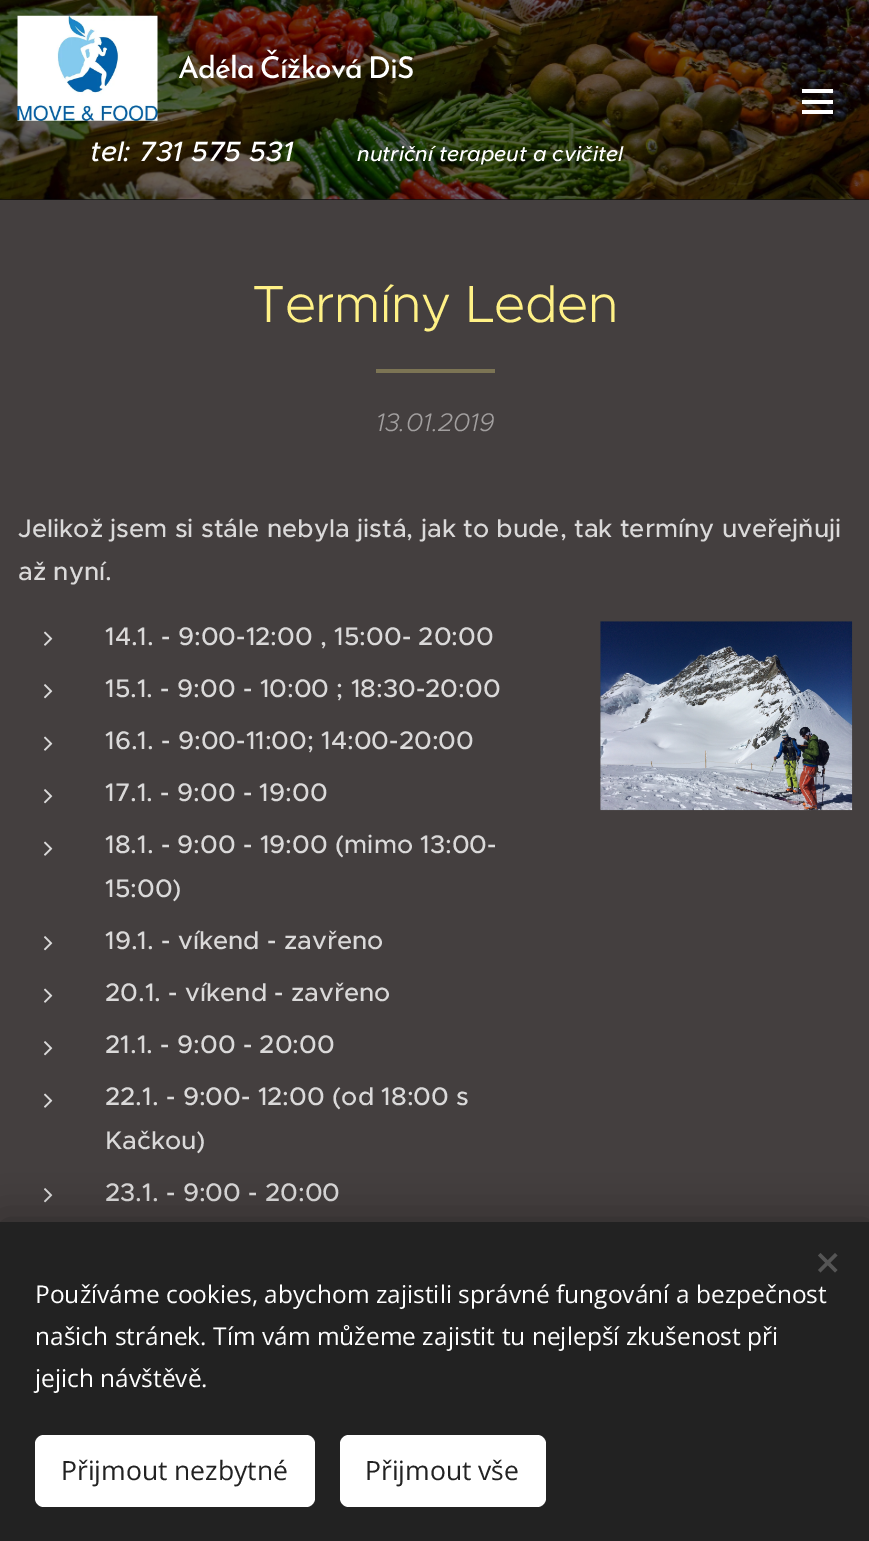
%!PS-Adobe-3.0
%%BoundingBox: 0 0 869 1541
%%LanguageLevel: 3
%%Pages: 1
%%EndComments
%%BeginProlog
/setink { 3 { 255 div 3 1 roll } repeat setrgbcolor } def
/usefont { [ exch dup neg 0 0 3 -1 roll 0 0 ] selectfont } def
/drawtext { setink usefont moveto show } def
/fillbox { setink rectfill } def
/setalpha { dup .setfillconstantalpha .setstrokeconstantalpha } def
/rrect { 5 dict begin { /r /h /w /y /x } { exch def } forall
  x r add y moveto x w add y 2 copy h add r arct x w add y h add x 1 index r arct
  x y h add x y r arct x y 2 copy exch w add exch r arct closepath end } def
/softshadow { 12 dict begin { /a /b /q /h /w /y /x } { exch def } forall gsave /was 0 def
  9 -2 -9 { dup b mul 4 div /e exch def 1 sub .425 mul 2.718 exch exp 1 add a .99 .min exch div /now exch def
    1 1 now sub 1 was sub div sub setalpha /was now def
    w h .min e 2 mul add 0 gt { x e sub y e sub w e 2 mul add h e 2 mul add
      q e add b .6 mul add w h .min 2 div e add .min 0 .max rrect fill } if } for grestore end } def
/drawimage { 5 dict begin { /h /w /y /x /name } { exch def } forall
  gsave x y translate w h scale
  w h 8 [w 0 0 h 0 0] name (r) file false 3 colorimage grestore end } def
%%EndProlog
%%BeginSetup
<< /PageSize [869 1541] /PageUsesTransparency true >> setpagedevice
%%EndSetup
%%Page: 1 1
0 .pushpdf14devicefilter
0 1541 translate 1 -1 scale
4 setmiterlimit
0 0 869 1541 68 63 63 fillbox
0 199 869 1 16 16 16 fillbox
(assets/img1.rgb) 0 0 869 200 drawimage
(assets/img2.rgb) 17 15 141 106 drawimage
/JosefinSans-Medium 30 usefont
255 255 255 setink
178 78 moveto -2 0 32 -0.9 0 (Adéla Čížková DiS) awidthshow
(tel: 731 575 531) 90 161 /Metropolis-MediumItalic 28 255 255 255 drawtext
(nutriční terapeut a cvičitel) 357 161 /Metropolis-MediumItalic 21 255 255 255 drawtext
802 100 31 4 255 255 255 fillbox
802 89 31 4 255 255 255 fillbox
802 110 31 4 255 255 255 fillbox
/Metropolis-Light 52.5 usefont
255 241 134 setink
252 322 moveto -0.5 0 (Termíny Leden) ashow
376 369 119 4 124 116 84 fillbox
(13.01.2019) 376 431 /Metropolis-LightItalic 25.55 162 159 159 drawtext
(Jelikož jsem si stále nebyla jistá, jak to bude, tak termíny uveřejňuji) 18 537 /Metropolis-Medium 25.55 218 217 217 drawtext
(až nyní.) 18 580 /Metropolis-Medium 25.55 218 217 217 drawtext
(assets/img3.rgb) 44 631 9 15 drawimage
(14.1. - 9:00-12:00 , 15:00- 20:00) 105 645 /Metropolis-Medium 25.55 218 217 217 drawtext
(assets/img4.rgb) 44 684 9 15 drawimage
(15.1. - 9:00 - 10:00 ; 18:30-20:00) 105 697 /Metropolis-Medium 25.55 218 217 217 drawtext
(assets/img3.rgb) 44 736 9 15 drawimage
(16.1. - 9:00-11:00; 14:00-20:00) 105 749 /Metropolis-Medium 25.55 218 217 217 drawtext
(assets/img4.rgb) 44 789 9 15 drawimage
(17.1. - 9:00 - 19:00) 105 801 /Metropolis-Medium 25.55 218 217 217 drawtext
(assets/img3.rgb) 44 841 9 15 drawimage
(18.1. - 9:00 - 19:00 \(mimo 13:00-) 105 853 /Metropolis-Medium 25.55 218 217 217 drawtext
(15:00\)) 105 897 /Metropolis-Medium 25.55 218 217 217 drawtext
(assets/img4.rgb) 44 936 9 15 drawimage
(19.1. - víkend - zavřeno) 105 949 /Metropolis-Medium 25.55 218 217 217 drawtext
(assets/img3.rgb) 44 988 9 15 drawimage
(20.1. - víkend - zavřeno) 105 1001 /Metropolis-Medium 25.55 218 217 217 drawtext
(assets/img4.rgb) 44 1041 9 15 drawimage
(21.1. - 9:00 - 20:00) 105 1053 /Metropolis-Medium 25.55 218 217 217 drawtext
(assets/img3.rgb) 44 1093 9 15 drawimage
(22.1. - 9:00- 12:00 \(od 18:00 s) 105 1105 /Metropolis-Medium 25.55 218 217 217 drawtext
(Kačkou\)) 105 1149 /Metropolis-Medium 25.55 218 217 217 drawtext
(assets/img4.rgb) 44 1188 9 15 drawimage
(23.1. - 9:00 - 20:00) 105 1201 /Metropolis-Medium 25.55 218 217 217 drawtext
(assets/img5.rgb) 600 621 253 190 drawimage
0 0 0 setink
0 1222 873 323 0 22 0.33 softshadow
0 1222 869 319 34 34 34 fillbox
85 85 85 setink
818 1270 moveto 835 1253 lineto 837.5 1255.5 lineto 820.5 1272.5 lineto closepath fill
820.5 1253 moveto 837.5 1270 lineto 835 1272.5 lineto 818 1255.5 lineto closepath fill
(Používáme cookies, abychom zajistili správné fungování a bezpečnost) 35 1303 /OpenSans-Regular 24.5 255 255 255 drawtext
(našich stránek. Tím vám můžeme zajistit tu nejlepší zkušenost při) 35 1345 /OpenSans-Regular 24.5 255 255 255 drawtext
(jejich návštěvě.) 35 1387 /OpenSans-Regular 24.5 255 255 255 drawtext
35 1435 280 72 9 rrect fill
(Přijmout nezbytné) 61 1480 /OpenSans-Regular 26.5 34 34 34 drawtext
255 255 255 setink
340 1435 206 72 9 rrect fill
(Přijmout vše) 365 1480 /OpenSans-Regular 26.5 34 34 34 drawtext
.poppdf14devicefilter showpage
%%EOF
